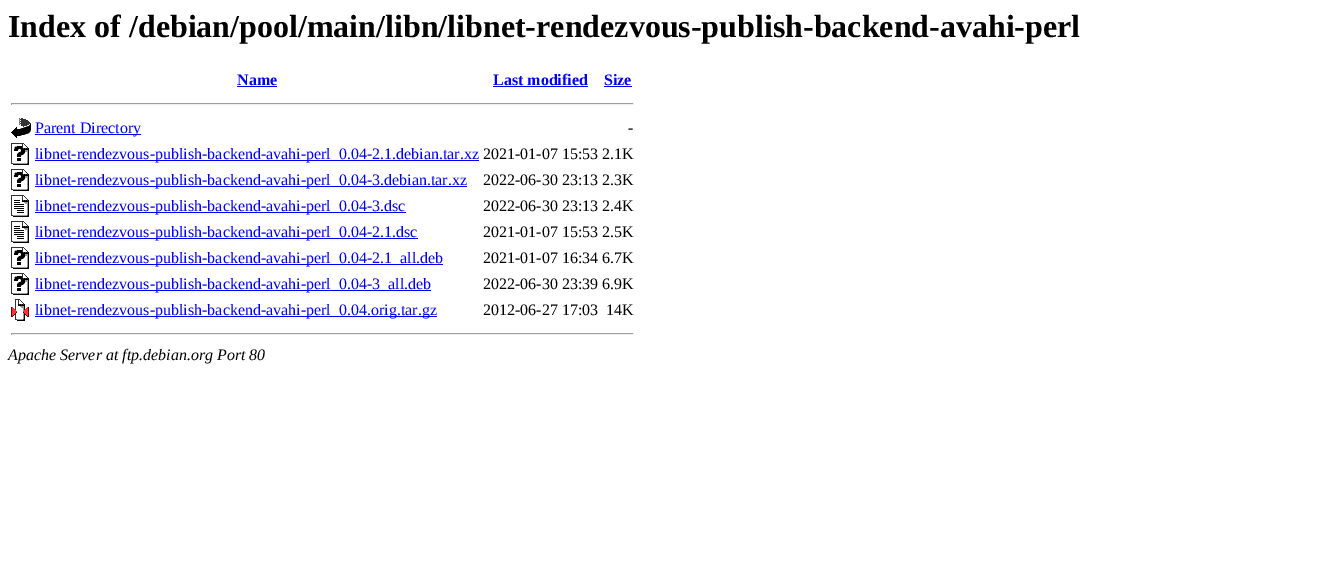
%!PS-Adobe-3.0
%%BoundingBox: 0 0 1323 582
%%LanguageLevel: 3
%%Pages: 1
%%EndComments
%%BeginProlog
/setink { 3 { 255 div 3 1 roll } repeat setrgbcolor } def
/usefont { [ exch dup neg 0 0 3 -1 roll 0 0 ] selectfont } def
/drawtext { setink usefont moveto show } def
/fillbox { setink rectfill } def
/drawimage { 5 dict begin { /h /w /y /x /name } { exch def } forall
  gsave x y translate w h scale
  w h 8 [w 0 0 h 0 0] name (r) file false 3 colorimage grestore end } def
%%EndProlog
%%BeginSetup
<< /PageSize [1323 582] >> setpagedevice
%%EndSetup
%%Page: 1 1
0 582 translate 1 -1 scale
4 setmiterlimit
0 0 1323 582 255 255 255 fillbox
(Index of /debian/pool/main/libn/libnet-rendezvous-publish-backend-avahi-perl) 8 37 /LiberationSerif-Bold 32 0 0 0 drawtext
(Name) 237 85 /LiberationSerif-Bold 16 0 0 238 drawtext
237 86 40 1 0 0 238 fillbox
(Last modified) 493 85 /LiberationSerif-Bold 16 0 0 238 drawtext
493 86 95 1 0 0 238 fillbox
(Size) 604 85 /LiberationSerif-Bold 16 0 0 238 drawtext
604 86 28 1 0 0 238 fillbox
11 103 623 1 159 159 159 fillbox
633 103 1 2 238 238 238 fillbox
11 104 623 1 238 238 238 fillbox
11 103 1 2 159 159 159 fillbox
(assets/img1.rgb) 11 118 20 20 drawimage
35 134 106 1 0 0 238 fillbox
(Parent Directory) 35 133 /LiberationSerif-Regular 16 0 0 238 drawtext
(-) 628 133 /LiberationSerif-Regular 16 0 0 0 drawtext
(assets/img2.rgb) 11 143 18 22 drawimage
35 160 444 1 0 0 238 fillbox
(libnet-rendezvous-publish-backend-avahi-perl_0.04-2.1.debian.tar.xz) 35 159 /LiberationSerif-Regular 16 0 0 238 drawtext
(2021-01-07 15:53 2.1K) 483 159 /LiberationSerif-Regular 16 0 0 0 drawtext
(assets/img2.rgb) 11 169 18 22 drawimage
35 186 432 1 0 0 238 fillbox
(libnet-rendezvous-publish-backend-avahi-perl_0.04-3.debian.tar.xz) 35 185 /LiberationSerif-Regular 16 0 0 238 drawtext
(2022-06-30 23:13 2.3K) 483 185 /LiberationSerif-Regular 16 0 0 0 drawtext
(assets/img3.rgb) 11 195 18 22 drawimage
35 212 371 1 0 0 238 fillbox
(libnet-rendezvous-publish-backend-avahi-perl_0.04-3.dsc) 35 211 /LiberationSerif-Regular 16 0 0 238 drawtext
(2022-06-30 23:13 2.4K) 483 211 /LiberationSerif-Regular 16 0 0 0 drawtext
(assets/img3.rgb) 11 221 18 22 drawimage
35 238 383 1 0 0 238 fillbox
(libnet-rendezvous-publish-backend-avahi-perl_0.04-2.1.dsc) 35 237 /LiberationSerif-Regular 16 0 0 238 drawtext
(2021-01-07 15:53 2.5K) 483 237 /LiberationSerif-Regular 16 0 0 0 drawtext
(assets/img2.rgb) 11 247 18 22 drawimage
35 264 408 1 0 0 238 fillbox
(libnet-rendezvous-publish-backend-avahi-perl_0.04-2.1_all.deb) 35 263 /LiberationSerif-Regular 16 0 0 238 drawtext
(2021-01-07 16:34 6.7K) 483 263 /LiberationSerif-Regular 16 0 0 0 drawtext
(assets/img2.rgb) 11 273 18 22 drawimage
35 290 396 1 0 0 238 fillbox
(libnet-rendezvous-publish-backend-avahi-perl_0.04-3_all.deb) 35 289 /LiberationSerif-Regular 16 0 0 238 drawtext
(2022-06-30 23:39 6.9K) 483 289 /LiberationSerif-Regular 16 0 0 0 drawtext
(assets/img4.rgb) 11 299 18 22 drawimage
35 316 402 1 0 0 238 fillbox
(libnet-rendezvous-publish-backend-avahi-perl_0.04.orig.tar.gz) 35 315 /LiberationSerif-Regular 16 0 0 238 drawtext
(2012-06-27 17:03) 483 315 /LiberationSerif-Regular 16 0 0 0 drawtext
(14K) 606 315 /LiberationSerif-Regular 16 0 0 0 drawtext
11 333 623 1 159 159 159 fillbox
633 333 1 2 238 238 238 fillbox
11 334 623 1 238 238 238 fillbox
11 333 1 2 159 159 159 fillbox
(Apache Server at ftp.debian.org Port 80) 8 360 /LiberationSerif-Italic 16 0 0 0 drawtext
showpage
%%EOF
